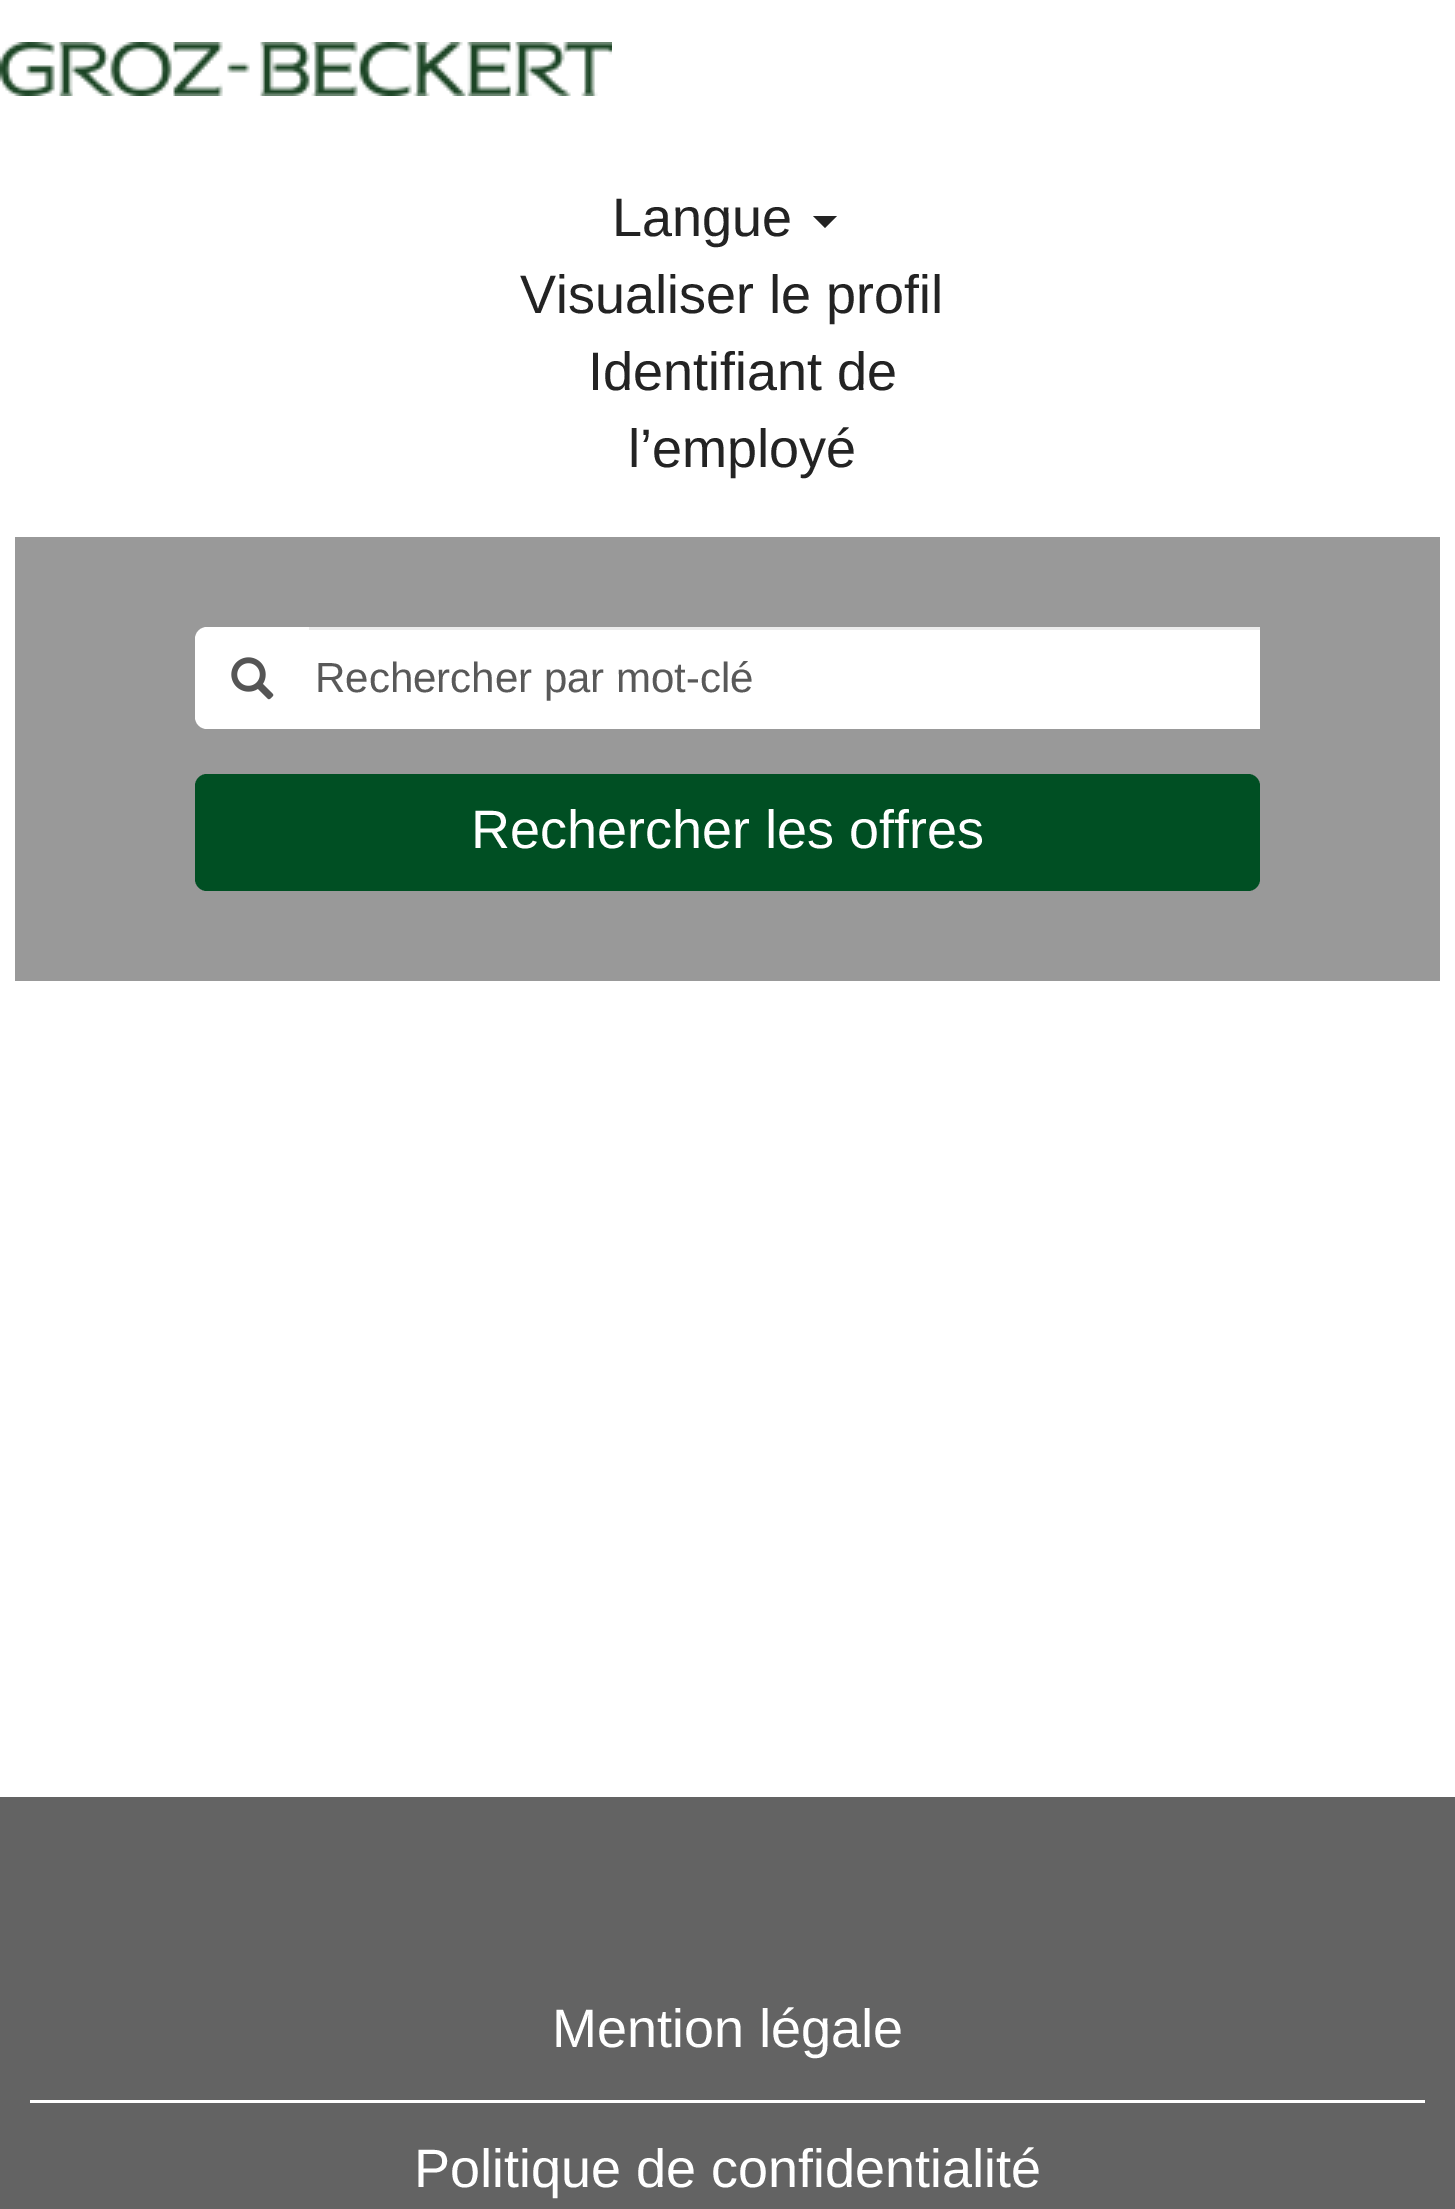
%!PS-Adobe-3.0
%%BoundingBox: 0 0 1455 2209
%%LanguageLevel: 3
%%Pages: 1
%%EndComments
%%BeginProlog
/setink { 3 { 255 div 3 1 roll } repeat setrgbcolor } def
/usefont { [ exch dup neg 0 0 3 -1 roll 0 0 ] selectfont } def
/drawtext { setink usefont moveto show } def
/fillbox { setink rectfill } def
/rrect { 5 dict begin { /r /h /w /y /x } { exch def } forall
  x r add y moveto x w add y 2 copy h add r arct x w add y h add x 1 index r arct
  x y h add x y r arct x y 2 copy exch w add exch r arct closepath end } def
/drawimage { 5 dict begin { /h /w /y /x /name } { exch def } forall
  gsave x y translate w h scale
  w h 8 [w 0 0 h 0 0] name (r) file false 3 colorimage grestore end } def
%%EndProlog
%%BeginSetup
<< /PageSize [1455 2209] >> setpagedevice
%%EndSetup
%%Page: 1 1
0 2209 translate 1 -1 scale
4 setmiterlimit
0 0 1455 2209 255 255 255 fillbox
(assets/img1.rgb) 0 42 612 54 drawimage
(Langue) 612 236 /LiberationSans-Regular 54 35 35 35 drawtext
813 216 moveto 837 216 lineto 825 228 lineto closepath fill
(Visualiser le profil) 520 313 /LiberationSans-Regular 54 35 35 35 drawtext
(Identifiant de) 588 390 /LiberationSans-Regular 54 35 35 35 drawtext
(l’employé) 628 467 /LiberationSans-Regular 54 35 35 35 drawtext
15 537 1425 444 153 153 153 fillbox
255 255 255 setink
207 627 moveto 309 627 lineto 309 729 lineto 207 729 lineto 200.5 729 195 723.5 195 717 curveto 195 639 lineto 195 632.5 200.5 627 207 627 curveto closepath fill
(assets/img2.rgb) 231 657 43 43 drawimage
309 630 951 99 255 255 255 fillbox
309 627 951 3 236 236 236 fillbox
(Rechercher par mot-clé) 315 692 /LiberationSans-Regular 42 89 89 89 drawtext
0 79 35 setink
195 774 1065 117 12 rrect fill
(Rechercher les offres) 471 848 /LiberationSans-Regular 54 255 255 255 drawtext
0 1797 1455 412 99 99 99 fillbox
30 2100 1395 3 255 255 255 fillbox
(Mention légale) 552 2047 /LiberationSans-Regular 54 255 255 255 drawtext
(Politique de confidentialité) 414 2187 /LiberationSans-Regular 54 255 255 255 drawtext
showpage
%%EOF
